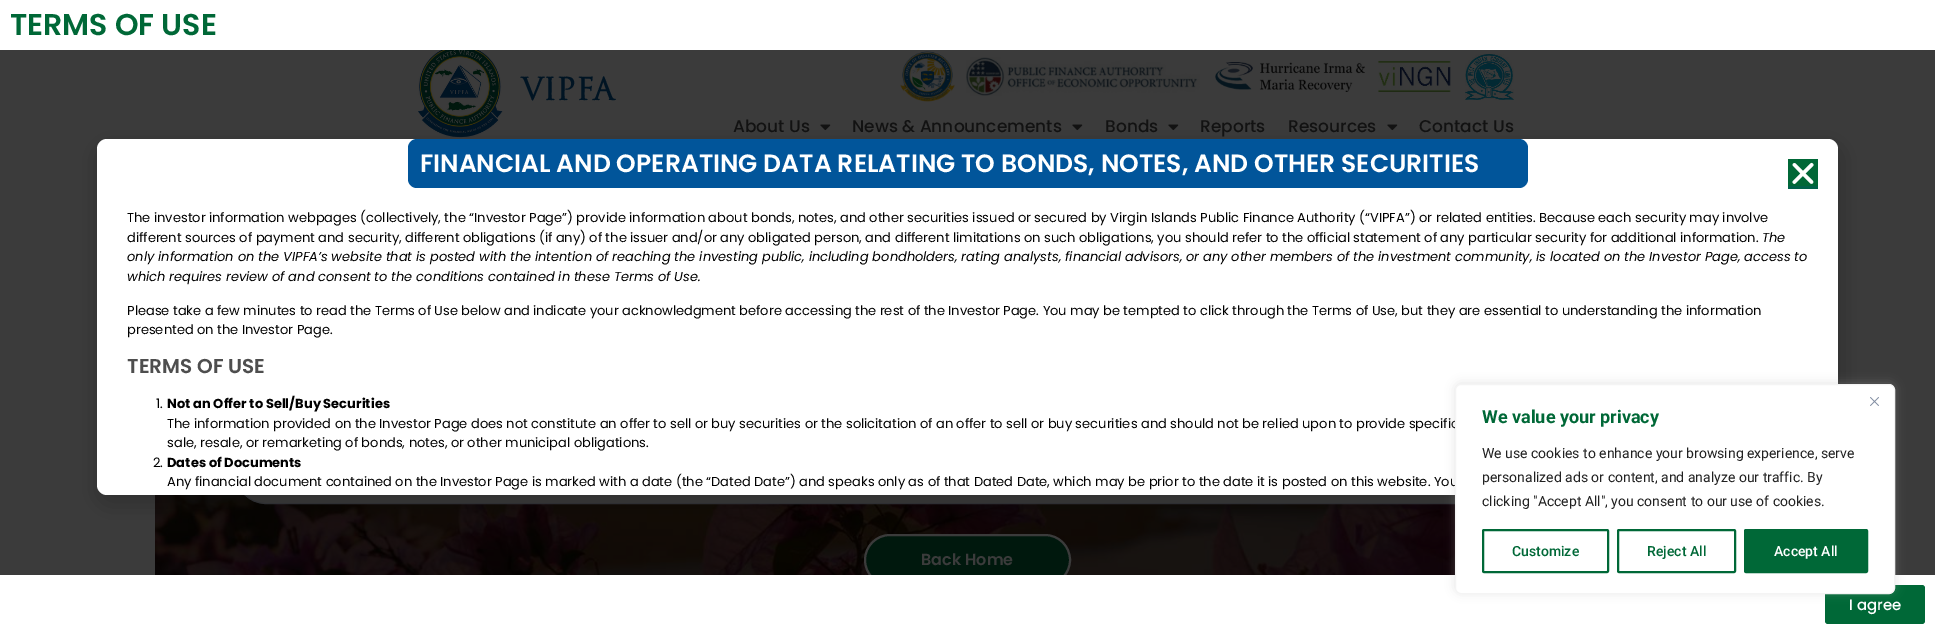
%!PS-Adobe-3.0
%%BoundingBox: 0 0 1935 634
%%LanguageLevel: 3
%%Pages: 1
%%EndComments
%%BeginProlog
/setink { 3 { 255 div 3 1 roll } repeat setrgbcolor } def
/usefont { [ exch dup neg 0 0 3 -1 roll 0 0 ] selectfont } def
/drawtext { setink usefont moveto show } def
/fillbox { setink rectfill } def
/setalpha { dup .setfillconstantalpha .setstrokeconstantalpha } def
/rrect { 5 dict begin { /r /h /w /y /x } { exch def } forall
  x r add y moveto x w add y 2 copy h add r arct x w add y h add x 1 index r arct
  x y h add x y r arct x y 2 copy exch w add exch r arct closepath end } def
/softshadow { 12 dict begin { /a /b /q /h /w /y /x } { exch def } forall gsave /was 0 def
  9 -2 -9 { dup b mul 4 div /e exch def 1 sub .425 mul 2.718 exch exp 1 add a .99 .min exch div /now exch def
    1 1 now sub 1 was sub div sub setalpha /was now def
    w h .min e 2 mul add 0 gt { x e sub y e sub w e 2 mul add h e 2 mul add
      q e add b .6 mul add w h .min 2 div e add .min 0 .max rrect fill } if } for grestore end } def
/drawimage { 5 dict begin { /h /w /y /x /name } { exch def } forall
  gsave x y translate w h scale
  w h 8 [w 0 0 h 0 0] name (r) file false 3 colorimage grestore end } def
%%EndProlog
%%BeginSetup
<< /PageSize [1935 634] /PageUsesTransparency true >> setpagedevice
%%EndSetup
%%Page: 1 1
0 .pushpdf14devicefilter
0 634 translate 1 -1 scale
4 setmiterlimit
0 0 1935 634 59 59 59 fillbox
(assets/img2.rgb) 418 50 85 88 drawimage
(assets/img8.rgb) 820 124 11 7 drawimage
(assets/img8.rgb) 1072 124 11 7 drawimage
(assets/img8.rgb) 1168 124 11 7 drawimage
(assets/img8.rgb) 1387 124 11 7 drawimage
(assets/img9.rgb) 155 495 1300 80 drawimage
266 434.5 moveto 1515.5 434.5 lineto 1515.5 503.5 lineto 266 503.5 lineto 249.5 503.5 236.5 490.5 236.5 474 curveto 236.5 464 lineto 236.5 447.5 249.5 434.5 266 434.5 curveto closepath gsave fill grestore
52 53 57 setink
stroke
0 24 13 setink
865 535 205 50 25 rrect gsave fill grestore
59 59 59 setink
2 setlinewidth
stroke
0 0 0 setink
96 144 1747 362 13 11.5 0.2 softshadow
255 255 255 setink
97 139 1741 356 10 rrect fill
0 0 1935 50 255 255 255 fillbox
(TERMS OF USE) 10 35 /Poppins-SemiBold 30 0 104 55 drawtext
(The investor information webpages \(collectively, the “Investor Page”\) provide information about bonds, notes, and other securities issued or secured by Virgin Islands Public Finance Authority \(“VIPFA”\) or related entities. Because each security may involve) 127 222 /Poppins-Regular 13 0 0 0 drawtext
(different sources of payment and security, different obligations \(if any\) of the issuer and/or any obligated person, and different limitations on such obligations, you should refer to the official statement of any particular security for additional information.) 127 242 /Poppins-Regular 13 0 0 0 drawtext
(The) 1762 242 /Poppins-Italic 13 0 0 0 drawtext
(only information on the VIPFA’s website that is posted with the intention of reaching the investing public, including bondholders, rating analysts, financial advisors, or any other members of the investment community, is located on the Investor Page, access to) 127 261 /Poppins-Italic 13 0 0 0 drawtext
(which requires review of and consent to the conditions contained in these Terms of Use.) 127 281 /Poppins-Italic 13 0 0 0 drawtext
(Please take a few minutes to read the Terms of Use below and indicate your acknowledgment before accessing the rest of the Investor Page. You may be tempted to click through the Terms of Use, but they are essential to understanding the information) 127 315 /Poppins-Regular 13 0 0 0 drawtext
(presented on the Investor Page.) 127 334 /Poppins-Regular 13 0 0 0 drawtext
(TERMS OF USE) 127 373 /Poppins-SemiBold 20 78 78 78 drawtext
(1.) 156 408 /Poppins-Regular 13 0 0 0 drawtext
(Not an Offer to Sell/Buy Securities) 167 408 /Poppins-Bold 13 0 0 0 drawtext
(The information provided on the Investor Page does not constitute an offer to sell or buy securities or the solicitation of an offer to sell or buy securities and should not be relied upon to provide specific) 167 428 /Poppins-Regular 13 0 0 0 drawtext
(sale, resale, or remarketing of bonds, notes, or other municipal obligations.) 167 447 /Poppins-Regular 13 0 0 0 drawtext
(2.) 153 467 /Poppins-Regular 13 0 0 0 drawtext
(Dates of Documents) 167 467 /Poppins-Bold 13 0 0 0 drawtext
(Any financial document contained on the Investor Page is marked with a date \(the “Dated Date”\) and speaks only as of that Dated Date, which may be prior to the date it is posted on this website. You) 167 486 /Poppins-Regular 13 0 0 0 drawtext
0 575 1935 59 255 255 255 fillbox
0 104 55 setink
1825 585 100 39 3 rrect fill
(I agree) 1849 610 /Poppins-Medium 15 255 255 255 drawtext
1 85 154 setink
408 139 1120 49 9 rrect fill
(FINANCIAL AND OPERATING DATA RELATING TO BONDS, NOTES, AND OTHER SECURITIES) 420 172 /Poppins-SemiBold 25 255 255 255 drawtext
1788 159 30 27 0 104 55 fillbox
(assets/img1.rgb) 1792 162 22 22 drawimage
1788 186 30 3 0 98 74 fillbox
(VIPFA) 521 100 /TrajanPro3-Bold 30 0 20 35 drawtext
(assets/img3.rgb) 900 51 55 51 drawimage
(assets/img4.rgb) 966 57 234 39 drawimage
(assets/img5.rgb) 1215 62 150 30 drawimage
(assets/img6.rgb) 1378 61 73 31 drawimage
(assets/img7.rgb) 1465 54 49 46 drawimage
(About Us) 733 132 /Poppins-Medium 17 18 18 18 drawtext
(News & Announcements) 852 132 /Poppins-Medium 17 18 18 18 drawtext
(Bonds) 1105 132 /Poppins-Medium 17 18 18 18 drawtext
(Reports) 1200 132 /Poppins-Medium 17 18 18 18 drawtext
(Resources) 1288 132 /Poppins-Medium 17 18 18 18 drawtext
(Contact Us) 1419 132 /Poppins-Medium 17 18 18 18 drawtext
(Back Home) 921 565 /Poppins-SemiBold 16 59 59 59 drawtext
172 171 171 setink
1455 383 440 210 6 5 0.3 softshadow
255 255 255 setink
1455.5 384.5 439 209 5.5 rrect gsave fill grestore
244 244 244 setink
1 setlinewidth
stroke
(assets/img10.rgb) 1870 397 9 9 drawimage
(We value your privacy) 1482 423 /Roboto-Bold 18 0 104 55 drawtext
(We use cookies to enhance your browsing experience, serve) 1482 458 /Roboto-Regular 14 33 33 33 drawtext
(personalized ads or content, and analyze our traffic. By) 1482 482 /Roboto-Regular 14 33 33 33 drawtext
(clicking "Accept All", you consent to our use of cookies.) 1482 506 /Roboto-Regular 14 33 33 33 drawtext
0 104 55 setink
2 setlinewidth
1483 530 125 42 1 rrect stroke
(Customize) 1512 556 /Roboto-Medium 14 0 104 55 drawtext
1618 530 117 42 1 rrect stroke
(Reject All) 1647 556 /Roboto-Medium 14 0 104 55 drawtext
1745 530 122 42 1 rrect gsave fill grestore
stroke
(Accept All) 1774 556 /Roboto-Medium 14 255 255 255 drawtext
.poppdf14devicefilter showpage
%%EOF
